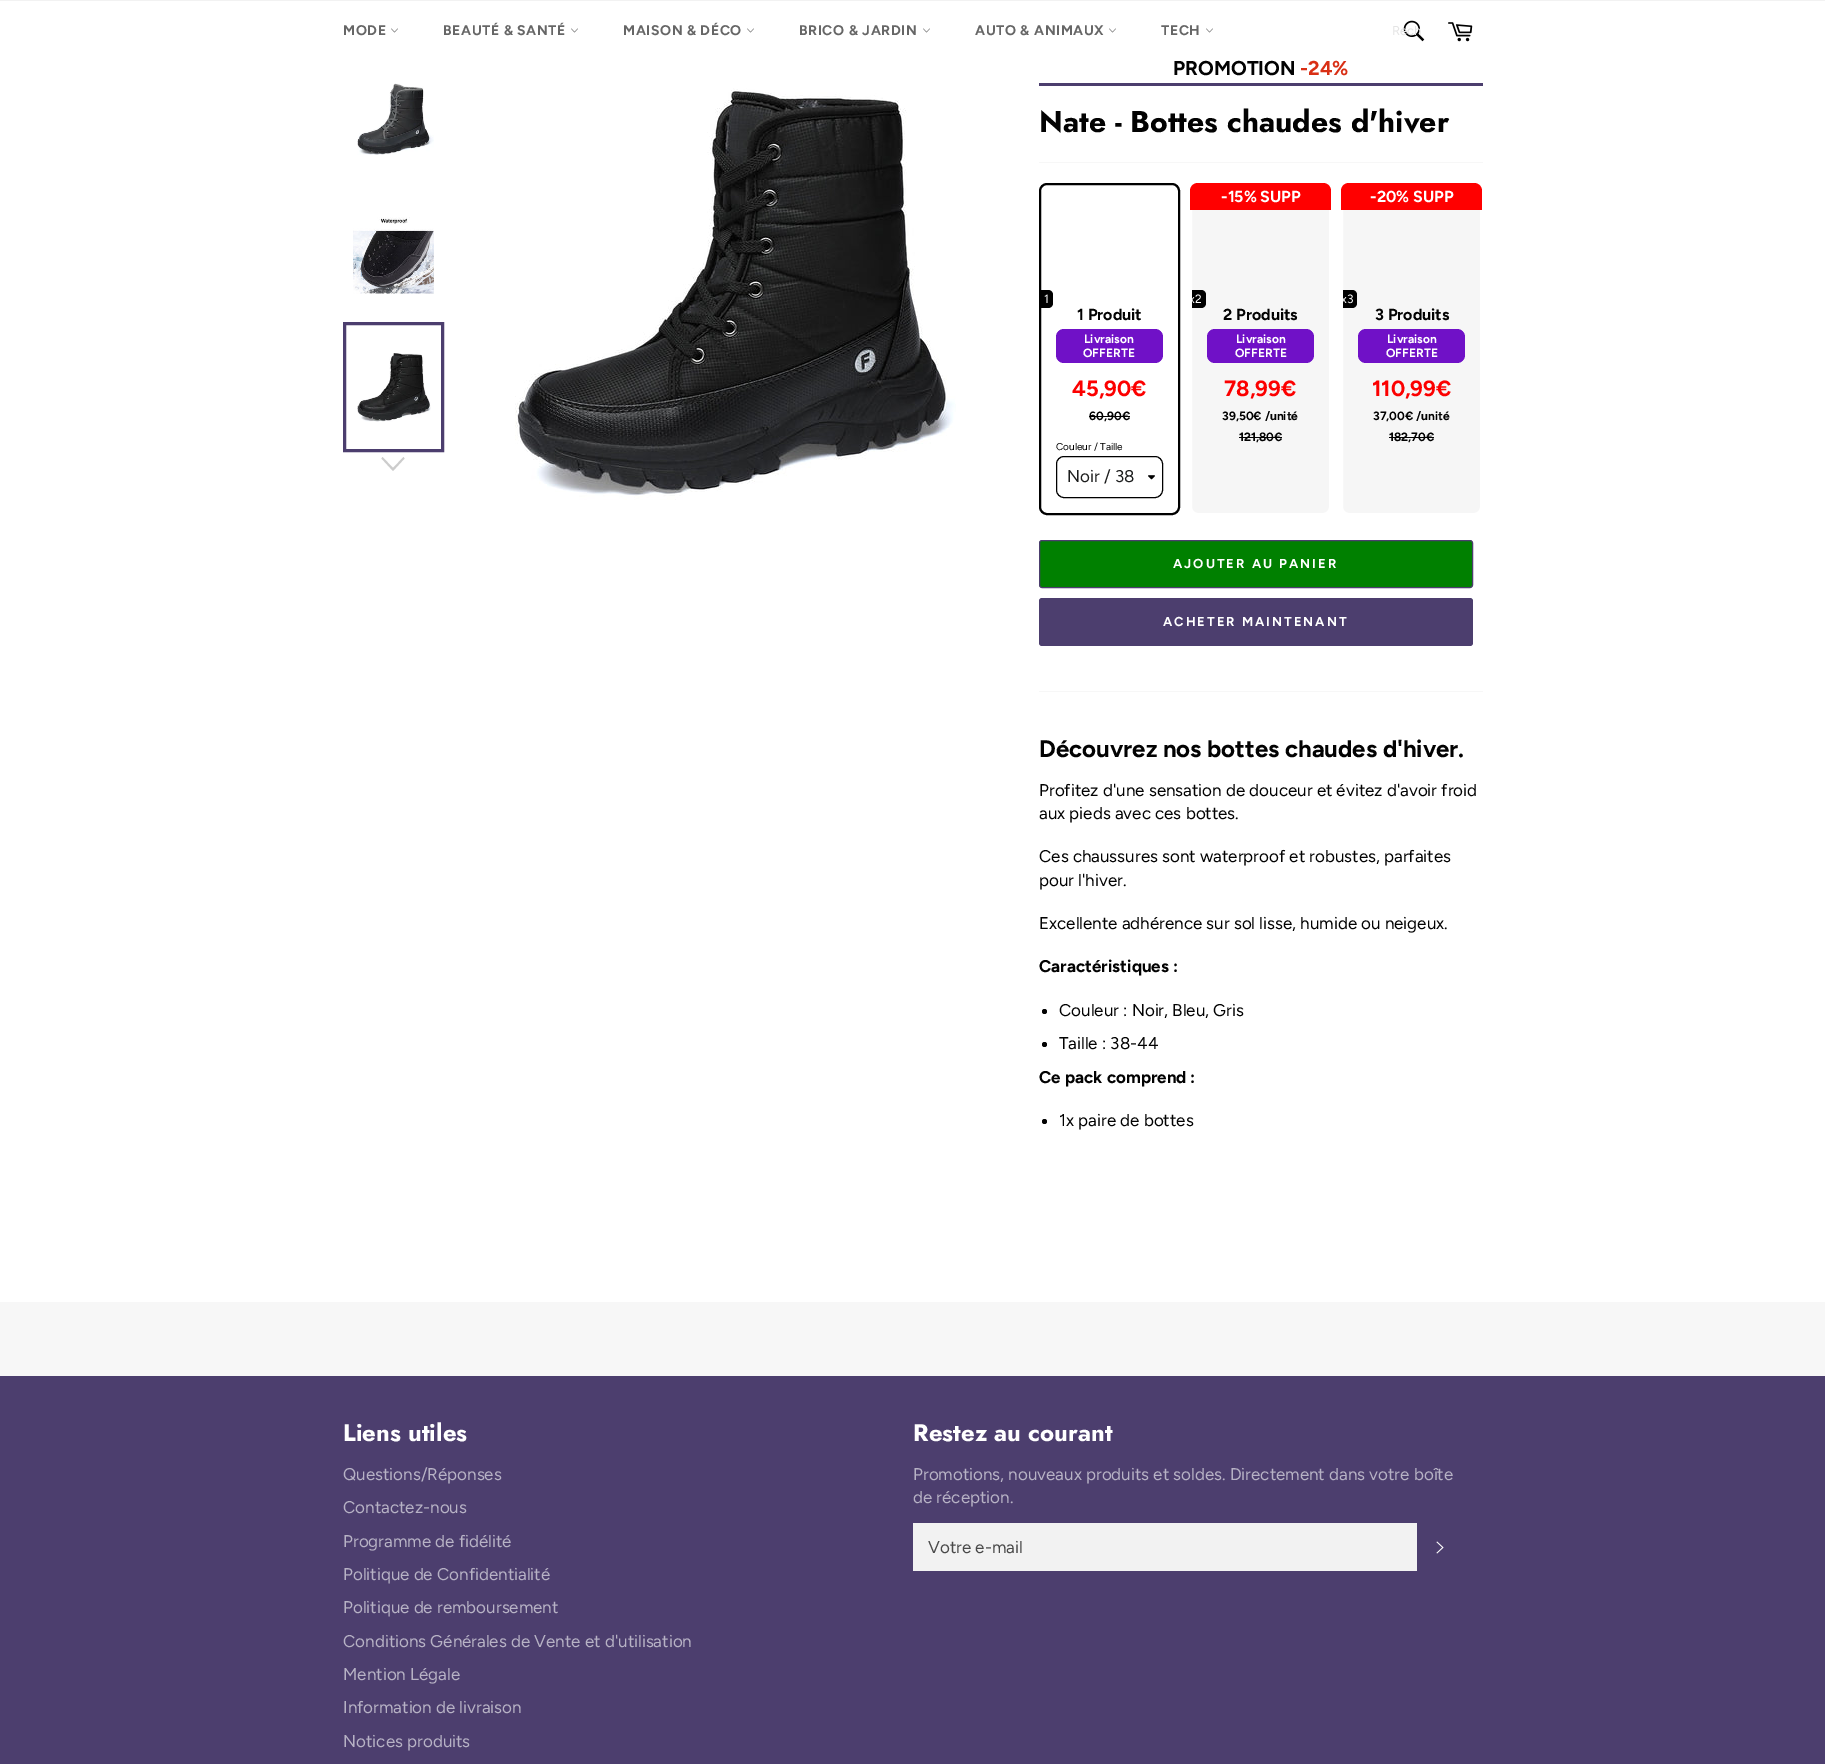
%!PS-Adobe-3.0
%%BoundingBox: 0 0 1825 1764
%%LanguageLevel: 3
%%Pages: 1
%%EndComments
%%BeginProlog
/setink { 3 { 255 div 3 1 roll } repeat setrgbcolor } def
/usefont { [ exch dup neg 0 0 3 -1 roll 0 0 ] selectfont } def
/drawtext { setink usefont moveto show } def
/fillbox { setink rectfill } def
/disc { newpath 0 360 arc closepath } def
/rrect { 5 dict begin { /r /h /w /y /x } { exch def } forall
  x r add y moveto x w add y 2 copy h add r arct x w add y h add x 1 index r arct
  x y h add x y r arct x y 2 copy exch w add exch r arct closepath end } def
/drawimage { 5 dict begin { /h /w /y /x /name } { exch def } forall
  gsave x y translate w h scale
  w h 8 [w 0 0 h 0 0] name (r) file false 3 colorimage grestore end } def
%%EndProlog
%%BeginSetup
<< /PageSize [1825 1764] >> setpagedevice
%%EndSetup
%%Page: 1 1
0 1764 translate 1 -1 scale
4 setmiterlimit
0 0 1825 1764 247 247 247 fillbox
0 0 1825 1 242 242 242 fillbox
0 1 1825 1301 255 255 255 fillbox
/Figtree-Bold 14 usefont
102 102 102 setink
343 35 moveto 0.6 0 (MODE) ashow
(assets/img1.rgb) 391 28 7 5 drawimage
443 35 moveto 0.6 0 (BEAUTÉ & SANTÉ) ashow
(assets/img1.rgb) 571 28 7 5 drawimage
623 35 moveto 0.6 0 (MAISON & DÉCO) ashow
(assets/img1.rgb) 747 28 7 5 drawimage
799 35 moveto 0.6 0 (BRICO & JARDIN) ashow
(assets/img1.rgb) 923 28 7 5 drawimage
975 35 moveto 0.6 0 (AUTO & ANIMAUX) ashow
(assets/img1.rgb) 1109 28 7 5 drawimage
1161 35 moveto 0.6 0 (TECH) ashow
(assets/img1.rgb) 1206 28 7 5 drawimage
(assets/img2.rgb) 1403 20 22 22 drawimage
(Rech) 1392 35 /Figtree-Regular 13 228 228 228 drawtext
(assets/img3.rgb) 1448 22 25 20 drawimage
(assets/img4.rgb) 357 83 77 72 drawimage
(assets/img5.rgb) 353 217 81 77 drawimage
(assets/img6.rgb) 357 353 74 69 drawimage
76 62 110 setink
3 setlinewidth
344.5 323.5 98 127 rectstroke
204 204 204 setink
403.5 457 moveto 404.5 458.5 lineto 393 471 lineto 381.5 458.5 lineto 382.5 457 lineto 393 468 lineto closepath fill
(assets/img7.rgb) 515 88 441 412 drawimage
1039 83 444 3 76 62 110 fillbox
(PROMOTION) 1173 75 /Figtree-Bold 20 2 2 2 drawtext
(-24%) 1300 75 /Figtree-Bold 20 217 47 21 drawtext
(Nate - Bottes chaudes d'hiver) 1039 132 /Jost-Bold 30 2 2 2 drawtext
1039 162 444 1 247 247 247 fillbox
0 0 0 setink
2 setlinewidth
1040 184 139 330 7 rrect stroke
1041 290 moveto 1048 290 lineto 1051 290 1053 292 1053 295 curveto 1053 303 lineto 1053 306 1051 308 1048 308 curveto 1041 308 lineto closepath fill
(1) 1044 303 /Figtree-Regular 12 255 255 255 drawtext
(1 Produit) 1077 320 /Figtree-Bold 16 2 2 2 drawtext
112 17 199 setink
1056 329 107 34 8 rrect fill
(Livraison) 1084 343 /Figtree-Bold 12 255 255 255 drawtext
(OFFERTE) 1083 357 /Figtree-Bold 12 255 255 255 drawtext
(45,90€) 1072 396 /Figtree-Bold 22 252 0 0 drawtext
(60,90€) 1089 420 /Figtree-Bold 12 2 2 2 drawtext
1089 416 41 1 0 0 0 fillbox
(Couleur / Taille) 1056 450 /Figtree-Regular 10 2 2 2 drawtext
(assets/img8.rgb) 1148 475 7 5 drawimage
0 0 0 setink
1 setlinewidth
1056.5 456.5 106 41 7.5 rrect stroke
(Noir / 38) 1067 482 /Figtree-Regular 17 28 29 29 drawtext
246 246 246 setink
1191 184 139 330 7 rrect gsave fill grestore
255 255 255 setink
2 setlinewidth
stroke
255 0 0 setink
1198 183 moveto 1323 183 lineto 1327.5 183 1331 186.5 1331 191 curveto 1331 210 lineto 1190 210 lineto 1190 191 lineto 1190 186.5 1193.5 183 1198 183 curveto closepath fill
(-15% SUPP) 1221 202 /Figtree-Bold 16 255 255 255 drawtext
0 0 0 setink
1192 290 moveto 1201 290 lineto 1204 290 1206 292 1206 295 curveto 1206 303 lineto 1206 306 1204 308 1201 308 curveto 1192 308 lineto closepath fill
gsave
1192 185 137 328 6 rrect clip newpath
(x2) 1189 303 /Figtree-Regular 12 255 255 255 drawtext
grestore
(2 Produits) 1223 320 /Figtree-Bold 16 2 2 2 drawtext
112 17 199 setink
1207 329 107 34 8 rrect fill
(Livraison) 1236 343 /Figtree-Bold 12 255 255 255 drawtext
(OFFERTE) 1235 357 /Figtree-Bold 12 255 255 255 drawtext
(78,99€) 1224 396 /Figtree-Bold 22 252 0 0 drawtext
(39,50€ /unité) 1222 420 /Figtree-Bold 12 2 2 2 drawtext
(121,80€) 1239 441 /Figtree-Bold 12 2 2 2 drawtext
1239 437 43 1 0 0 0 fillbox
246 246 246 setink
1342 184 139 330 7 rrect gsave fill grestore
255 255 255 setink
stroke
255 0 0 setink
1349 183 moveto 1474 183 lineto 1478.5 183 1482 186.5 1482 191 curveto 1482 210 lineto 1341 210 lineto 1341 191 lineto 1341 186.5 1344.5 183 1349 183 curveto closepath fill
(-20% SUPP) 1370 202 /Figtree-Bold 16 255 255 255 drawtext
0 0 0 setink
1343 290 moveto 1352 290 lineto 1355 290 1357 292 1357 295 curveto 1357 303 lineto 1357 306 1355 308 1352 308 curveto 1343 308 lineto closepath fill
gsave
1343 185 137 328 6 rrect clip newpath
(x3) 1341 303 /Figtree-Regular 12 255 255 255 drawtext
grestore
(3 Produits) 1375 320 /Figtree-Bold 16 2 2 2 drawtext
112 17 199 setink
1358 329 107 34 8 rrect fill
(Livraison) 1387 343 /Figtree-Bold 12 255 255 255 drawtext
(OFFERTE) 1386 357 /Figtree-Bold 12 255 255 255 drawtext
(110,99€) 1372 396 /Figtree-Bold 22 252 0 0 drawtext
(37,00€ /unité) 1373 420 /Figtree-Bold 12 2 2 2 drawtext
(182,70€) 1389 441 /Figtree-Bold 12 2 2 2 drawtext
1389 437 45 1 0 0 0 fillbox
0 128 0 setink
1039.5 540.5 433 47 2.5 rrect gsave fill grestore
76 62 110 setink
1 setlinewidth
stroke
/Figtree-Bold 13 usefont
255 255 255 setink
1173 568 moveto 2 0 (AJOUTER AU PANIER) ashow
76 62 110 setink
1039 598 434 48 3 rrect fill
255 255 255 setink
1163 626 moveto 2 0 (ACHETER MAINTENANT) ashow
1039 691 444 1 247 247 247 fillbox
(Découvrez nos bottes chaudes d'hiver.) 1039 757 /Figtree-Bold 24 2 2 2 drawtext
(Profitez d'une sensation de douceur et évitez d'avoir froid) 1039 796 /Figtree-Regular 17 2 2 2 drawtext
(aux pieds avec ces bottes.) 1039 819 /Figtree-Regular 17 2 2 2 drawtext
(Ces chaussures sont waterproof et robustes, parfaites) 1039 862 /Figtree-Regular 17 2 2 2 drawtext
(pour l'hiver.) 1039 886 /Figtree-Regular 17 2 2 2 drawtext
(Excellente adhérence sur sol lisse, humide ou neigeux.) 1039 929 /Figtree-Regular 17 2 2 2 drawtext
(Caractéristiques :) 1039 972 /Figtree-Bold 17 2 2 2 drawtext
1044.5 1011.5 2.5 disc fill
(Couleur : Noir, Bleu, Gris) 1059 1016 /Figtree-Regular 17 2 2 2 drawtext
1044.5 1044.5 2.5 disc fill
(Taille : 38-44) 1059 1049 /Figtree-Regular 17 2 2 2 drawtext
(Ce pack comprend :) 1039 1083 /Figtree-Bold 17 2 2 2 drawtext
1044.5 1121.5 2.5 disc fill
(1x paire de bottes) 1059 1126 /Figtree-Regular 17 2 2 2 drawtext
0 1376 1825 388 76 62 110 fillbox
(Liens utiles) 343 1441 /Jost-Bold 24 255 255 255 drawtext
(Questions/Réponses) 343 1480 /Figtree-Regular 17 183 178 197 drawtext
(Contactez-nous) 343 1513 /Figtree-Regular 17 183 178 197 drawtext
(Programme de fidélité) 343 1547 /Figtree-Regular 17 183 178 197 drawtext
(Politique de Confidentialité) 343 1580 /Figtree-Regular 17 183 178 197 drawtext
(Politique de remboursement) 343 1613 /Figtree-Regular 17 183 178 197 drawtext
(Conditions Générales de Vente et d'utilisation) 343 1647 /Figtree-Regular 17 183 178 197 drawtext
(Mention Légale) 343 1680 /Figtree-Regular 17 183 178 197 drawtext
(Information de livraison) 343 1713 /Figtree-Regular 17 183 178 197 drawtext
(Notices produits) 343 1747 /Figtree-Regular 17 183 178 197 drawtext
(Restez au courant) 913 1441 /Jost-Bold 24 255 255 255 drawtext
(Promotions, nouveaux produits et soldes. Directement dans votre boîte) 913 1480 /Figtree-Regular 17 183 178 197 drawtext
(de réception.) 913 1503 /Figtree-Regular 17 183 178 197 drawtext
913 1523 504 48 242 242 242 fillbox
(Votre e-mail) 928 1553 /Figtree-Regular 17 73 73 73 drawtext
(assets/img9.rgb) 1436 1541 8 13 drawimage
showpage
%%EOF
